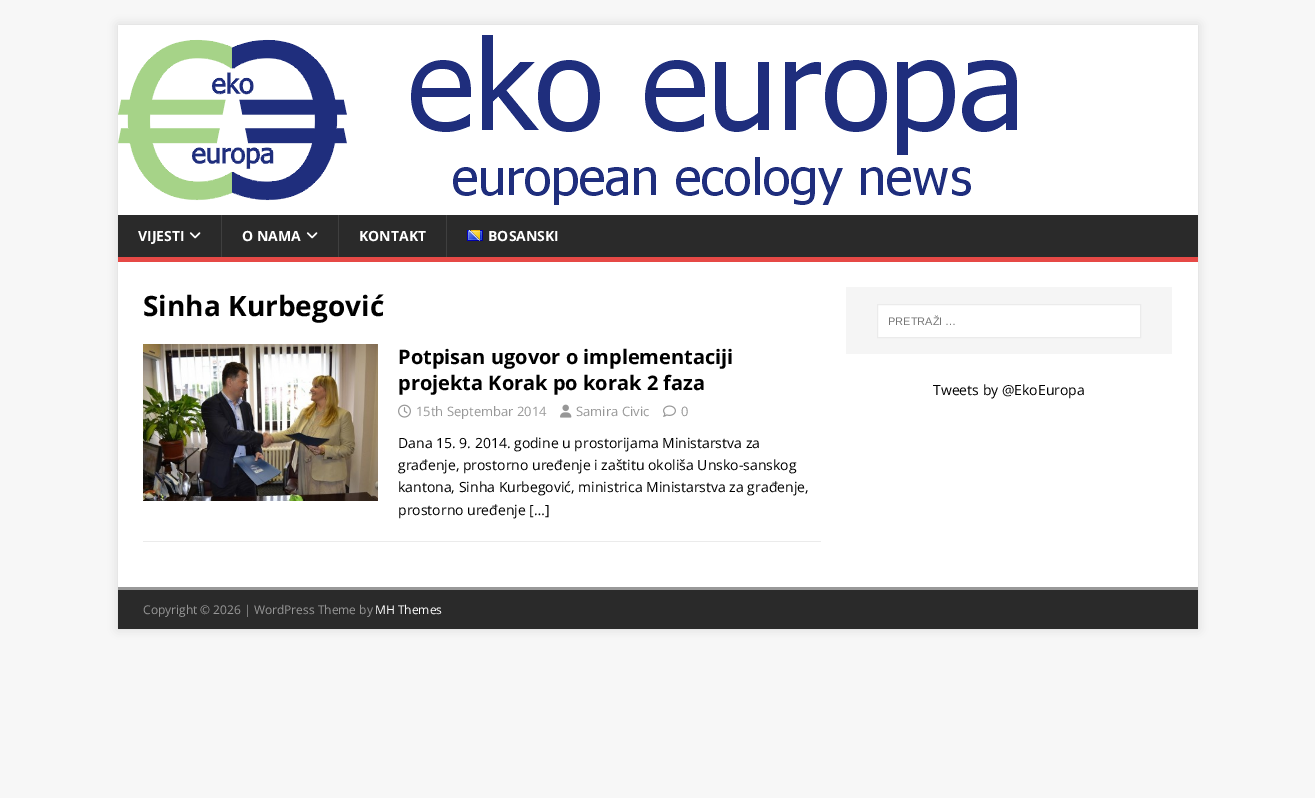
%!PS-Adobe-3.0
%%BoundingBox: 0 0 1315 798
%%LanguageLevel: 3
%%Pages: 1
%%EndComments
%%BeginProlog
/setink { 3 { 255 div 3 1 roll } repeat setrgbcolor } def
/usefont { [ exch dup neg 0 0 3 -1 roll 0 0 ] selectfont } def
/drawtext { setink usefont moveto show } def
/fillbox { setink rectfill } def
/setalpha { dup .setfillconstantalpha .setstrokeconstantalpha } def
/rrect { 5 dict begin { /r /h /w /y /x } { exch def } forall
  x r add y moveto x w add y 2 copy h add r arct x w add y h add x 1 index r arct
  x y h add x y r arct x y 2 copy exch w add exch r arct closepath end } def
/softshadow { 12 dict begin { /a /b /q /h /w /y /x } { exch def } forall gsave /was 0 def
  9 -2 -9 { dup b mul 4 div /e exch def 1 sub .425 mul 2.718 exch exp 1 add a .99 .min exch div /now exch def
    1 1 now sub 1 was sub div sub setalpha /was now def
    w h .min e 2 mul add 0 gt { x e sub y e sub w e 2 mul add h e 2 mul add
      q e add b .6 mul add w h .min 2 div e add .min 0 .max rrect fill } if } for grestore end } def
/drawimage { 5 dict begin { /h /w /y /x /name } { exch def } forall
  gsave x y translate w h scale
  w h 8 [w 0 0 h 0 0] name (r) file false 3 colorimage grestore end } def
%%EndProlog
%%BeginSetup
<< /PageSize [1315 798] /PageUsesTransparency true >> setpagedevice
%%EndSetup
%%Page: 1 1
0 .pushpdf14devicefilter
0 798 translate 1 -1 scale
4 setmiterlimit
0 0 1315 798 247 247 247 fillbox
50 50 50 setink
118 25 1080 604 0 5 0.17 softshadow
118 25 1080 190 255 255 255 fillbox
(assets/img1.rgb) 118 35 899 170 drawimage
118 215 1080 42 42 42 42 fillbox
118 257 1080 5 230 73 70 fillbox
(VIJESTI) 138 241 /OpenSans-Bold 14 255 255 255 drawtext
(assets/img2.rgb) 189 232 12 7 drawimage
221 215 1 42 63 63 63 fillbox
(O NAMA) 242 241 /OpenSans-Bold 14 255 255 255 drawtext
(assets/img2.rgb) 306 232 12 7 drawimage
338 215 1 42 63 63 63 fillbox
(KONTAKT) 359 241 /OpenSans-Bold 14 255 255 255 drawtext
446 215 1 42 63 63 63 fillbox
(assets/img3.rgb) 467 230 16 11 drawimage
(BOSANSKI) 488 241 /OpenSans-Bold 14 255 255 255 drawtext
118 262 1080 325 255 255 255 fillbox
(Sinha Kurbegović) 143 316 /OpenSans-Bold 28 0 0 0 drawtext
143 541 678 1 235 235 235 fillbox
(assets/img4.rgb) 143 344 235 157 drawimage
(Potpisan ugovor o implementaciji) 398 364 /OpenSans-Bold 20 0 0 0 drawtext
(projekta Korak po korak 2 faza) 398 390 /OpenSans-Bold 20 0 0 0 drawtext
(assets/img5.rgb) 398 404 13 14 drawimage
(15th Septembar 2014) 416 416 /OpenSans-Regular 13 151 151 151 drawtext
(assets/img6.rgb) 560 404 12 14 drawimage
(Samira Civic) 576 416 /OpenSans-Regular 13 151 151 151 drawtext
(assets/img7.rgb) 663 405 13 12 drawimage
(0) 681 416 /OpenSans-Regular 13 151 151 151 drawtext
(Dana 15. 9. 2014. godine u prostorijama Ministarstva za) 398 448 /OpenSans-Regular 14 0 0 0 drawtext
(građenje, prostorno uređenje i zaštitu okoliša Unsko-sanskog) 398 470 /OpenSans-Regular 14 0 0 0 drawtext
(kantona, Sinha Kurbegović, ministrica Ministarstva za građenje,) 398 492 /OpenSans-Regular 14 0 0 0 drawtext
(prostorno uređenje […]) 398 515 /OpenSans-Regular 14 0 0 0 drawtext
846 287 326 67 245 245 245 fillbox
255 255 255 setink
877.5 304.5 moveto 1140.5 304.5 lineto 1140.5 337.5 lineto 877.5 337.5 lineto closepath gsave fill grestore
235 235 235 setink
stroke
(PRETRAŽI …) 888 325 /LiberationSans-Regular 11 117 117 117 drawtext
(Tweets by @EkoEuropa) 933 395 /OpenSans-Regular 14 0 0 0 drawtext
118 590 1080 39 42 42 42 fillbox
118 587 1080 3 153 153 153 fillbox
(Copyright © 2026 | WordPress Theme by) 143 614 /OpenSans-Regular 12 151 151 151 drawtext
(MH Themes) 375 614 /OpenSans-Regular 12 255 255 255 drawtext
.poppdf14devicefilter showpage
%%EOF
